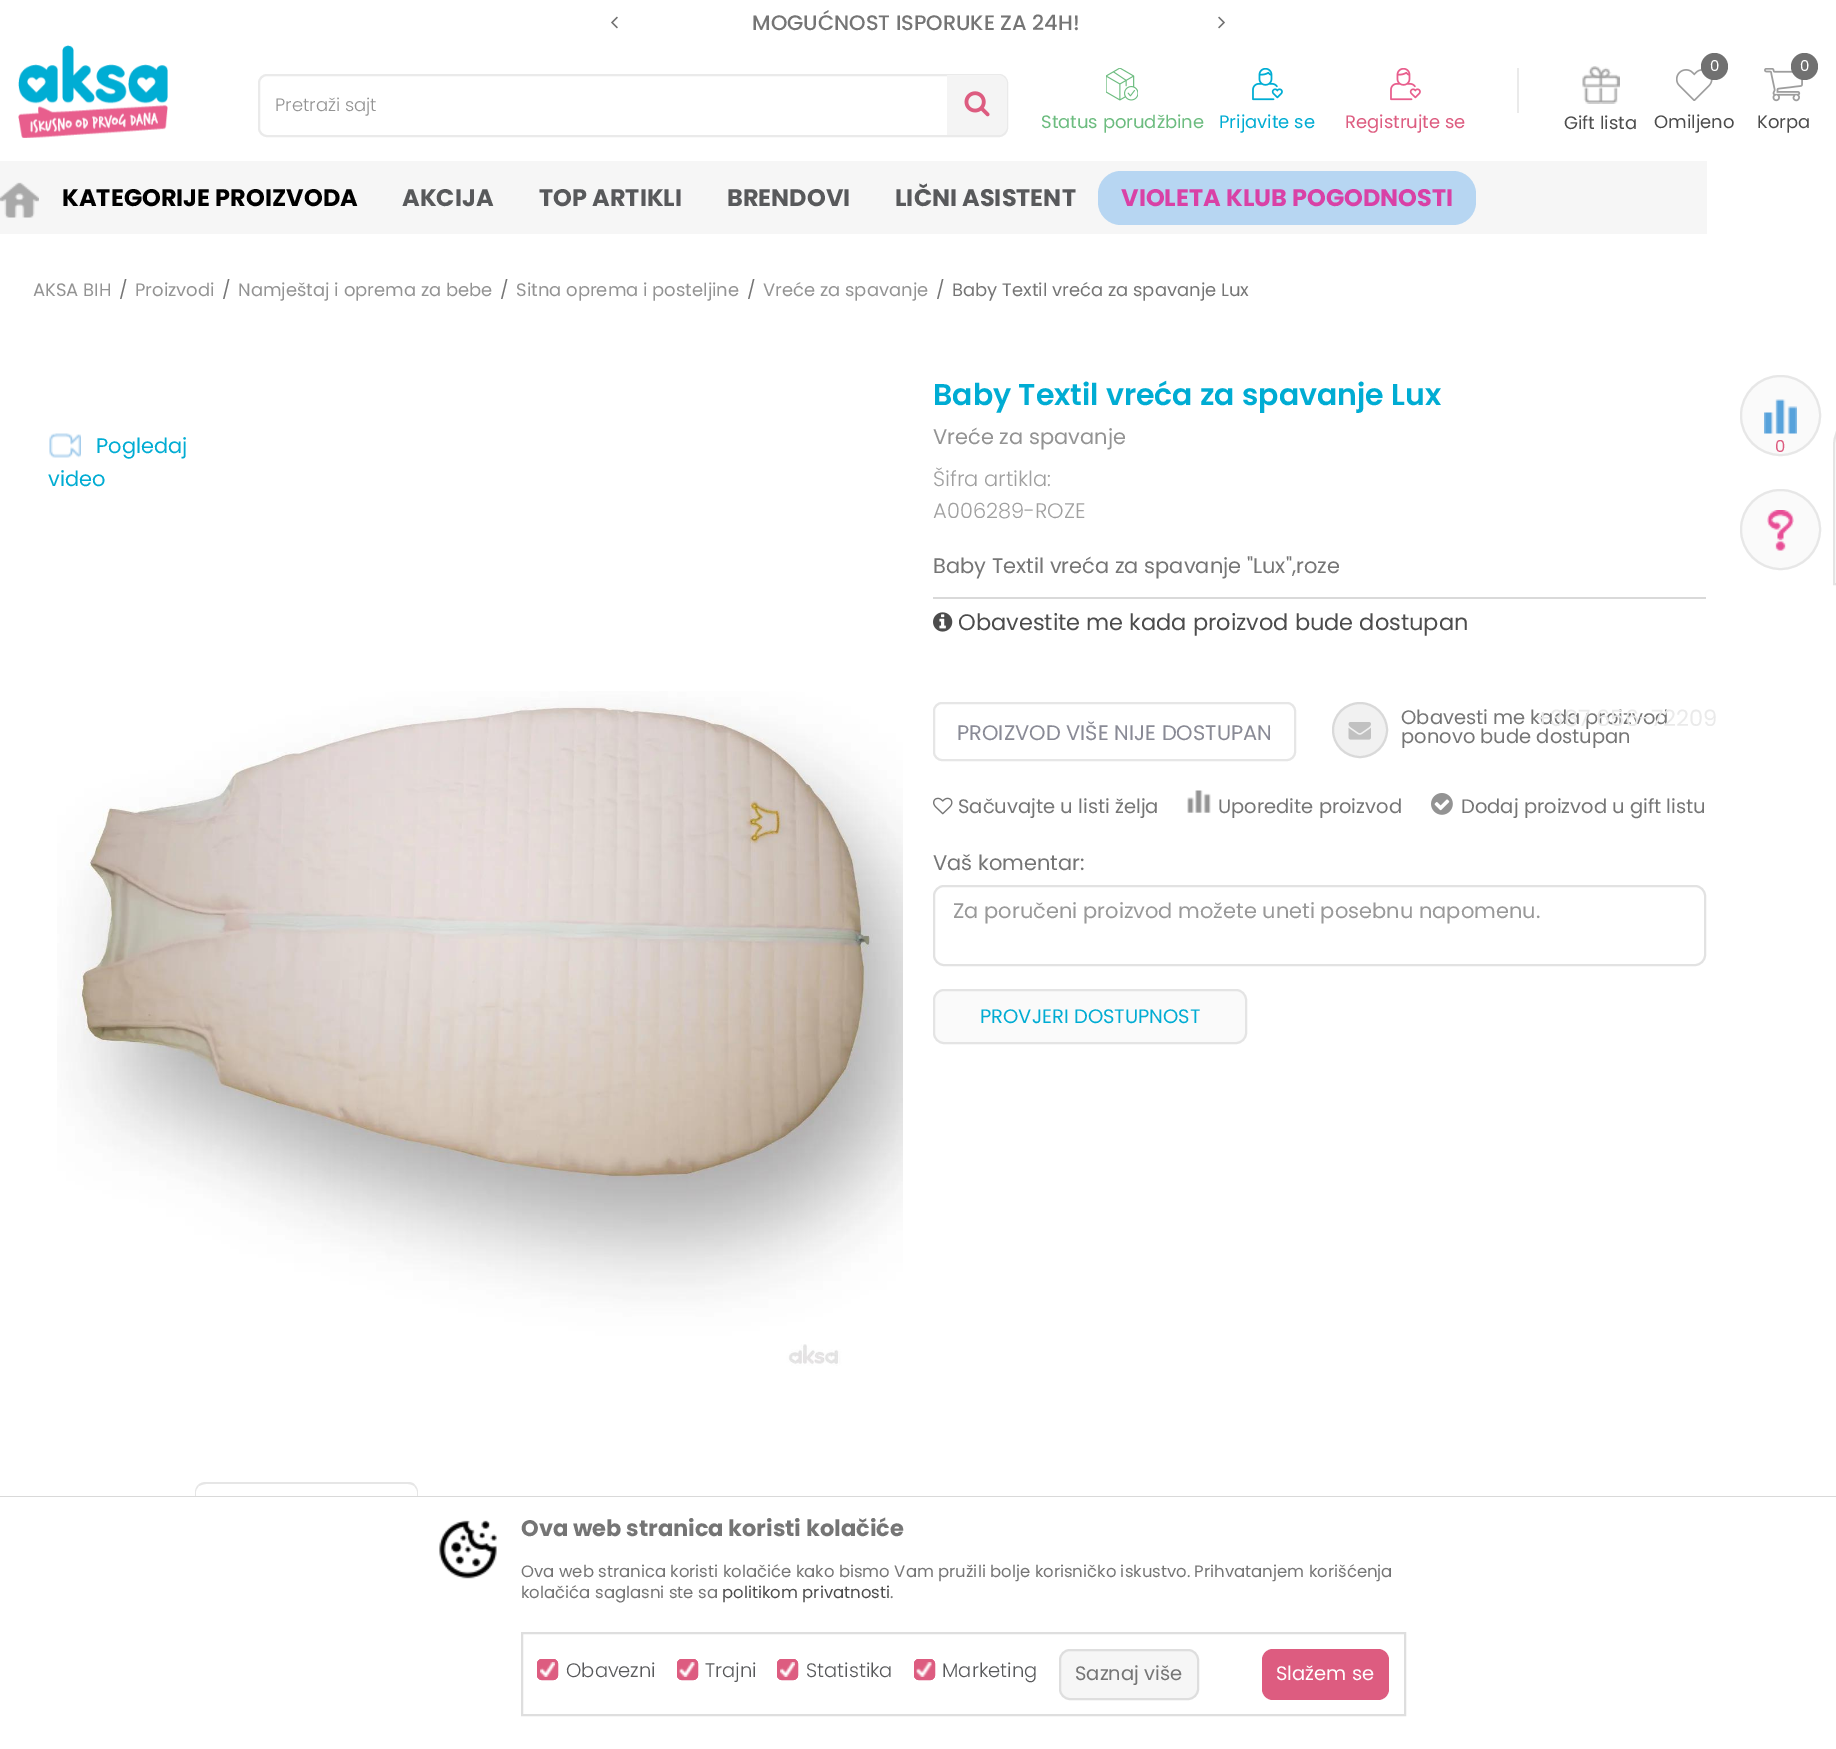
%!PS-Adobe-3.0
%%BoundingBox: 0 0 1836 1749
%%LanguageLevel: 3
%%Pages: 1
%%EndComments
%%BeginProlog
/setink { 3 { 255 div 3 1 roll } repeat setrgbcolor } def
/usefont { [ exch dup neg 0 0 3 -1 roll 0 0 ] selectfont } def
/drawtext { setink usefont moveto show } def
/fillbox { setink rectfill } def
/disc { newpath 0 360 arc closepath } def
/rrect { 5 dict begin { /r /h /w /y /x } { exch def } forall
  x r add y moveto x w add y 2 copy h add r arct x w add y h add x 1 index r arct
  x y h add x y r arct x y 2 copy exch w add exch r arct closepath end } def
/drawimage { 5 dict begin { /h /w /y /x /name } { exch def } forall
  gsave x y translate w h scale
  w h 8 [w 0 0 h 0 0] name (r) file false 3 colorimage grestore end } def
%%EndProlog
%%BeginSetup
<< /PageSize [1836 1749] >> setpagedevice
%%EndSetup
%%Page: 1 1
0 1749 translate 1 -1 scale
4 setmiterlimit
0 0 1836 1749 255 255 255 fillbox
(MOGUĆNOST ISPORUKE ZA 24H!) 752 30 /Poppins-Medium 21 117 117 117 drawtext
(assets/img1.rgb) 611 16 7 13 drawimage
(assets/img2.rgb) 1218 16 7 13 drawimage
(assets/img3.rgb) 18 45 150 93 drawimage
234 234 234 setink
2 setlinewidth
259 75 748 61 8 rrect stroke
(Pretraži sajt) 275 111 /Poppins-Light 18 147 147 147 drawtext
244 244 244 setink
947 75 moveto 998 75 lineto 1003 75 1007 79 1007 84 curveto 1007 126 lineto 1007 131 1003 135 998 135 curveto 947 135 lineto closepath fill
(assets/img4.rgb) 964 91 26 26 drawimage
(assets/img5.rgb) 1676 69 37 32 drawimage
113 113 113 setink
1714.5 66.5 13.5 disc fill
(0) 1710 71 /Poppins-Regular 15 255 255 255 drawtext
(Omiljeno) 1654 128 /Poppins-Regular 18 76 76 76 drawtext
(assets/img6.rgb) 1764 68 39 34 drawimage
113 113 113 setink
1804.5 66.5 13.5 disc fill
(0) 1800 71 /Poppins-Regular 15 255 255 255 drawtext
(Korpa) 1757 128 /Poppins-Regular 18 76 76 76 drawtext
(assets/img7.rgb) 1106 68 32 33 drawimage
(Status porudžbine) 1041 128 /Poppins-Regular 18 108 188 127 drawtext
1517 68 2 45 234 234 234 fillbox
(assets/img8.rgb) 1252 68 31 33 drawimage
(Prijavite se) 1219 128 /Poppins-Regular 18 0 172 211 drawtext
(assets/img9.rgb) 1390 68 31 33 drawimage
(Registrujte se) 1345 128 /Poppins-Regular 18 221 92 128 drawtext
(assets/img10.rgb) 1582 66 38 38 drawimage
(Gift lista) 1564 129 /Poppins-Regular 18 76 76 76 drawtext
0 161 1707 73 246 246 246 fillbox
(assets/img11.rgb) 0 182 39 36 drawimage
(KATEGORIJE PROIZVODA) 62 206 /Poppins-Bold 24 0 0 0 drawtext
(AKCIJA) 402 206 /Poppins-Bold 24 88 89 91 drawtext
(TOP ARTIKLI) 539 206 /Poppins-Bold 24 88 89 91 drawtext
(BRENDOVI) 727 206 /Poppins-Bold 24 88 89 91 drawtext
(LIČNI ASISTENT) 895 206 /Poppins-Bold 24 88 89 91 drawtext
183 214 242 setink
1098 171 378 54 23 rrect fill
(VIOLETA KLUB POGODNOSTI) 1121 206 /Poppins-Bold 24 217 65 166 drawtext
(AKSA BIH) 33 296 /Poppins-Regular 18 147 147 147 drawtext
(/) 119 296 /Poppins-Regular 18 117 117 117 drawtext
(Proizvodi) 135 296 /Poppins-Regular 18 147 147 147 drawtext
(/) 222 296 /Poppins-Regular 18 117 117 117 drawtext
(Namještaj i oprema za bebe) 238 296 /Poppins-Regular 18 147 147 147 drawtext
(/) 500 296 /Poppins-Regular 18 117 117 117 drawtext
(Sitna oprema i posteljine) 516 296 /Poppins-Regular 18 147 147 147 drawtext
(/) 747 296 /Poppins-Regular 18 117 117 117 drawtext
(Vreće za spavanje) 763 296 /Poppins-Regular 18 147 147 147 drawtext
(/) 936 296 /Poppins-Regular 18 117 117 117 drawtext
(Baby Textil vreća za spavanje Lux) 952 296 /Poppins-Regular 18 117 117 117 drawtext
(assets/img12.rgb) 49 433 32 25 drawimage
(Pogledaj) 96 453 /Poppins-Regular 21 0 172 211 drawtext
(video) 48 486 /Poppins-Regular 21 0 172 211 drawtext
(assets/img13.rgb) 57 691 846 675 drawimage
933 597 773 2 217 217 217 fillbox
(Baby Textil vreća za spavanje Lux) 933 405 /Poppins-SemiBold 30 0 172 211 drawtext
(Vreće za spavanje) 933 444 /Poppins-Regular 21 147 147 147 drawtext
(Šifra artikla:) 933 486 /Poppins-Light 21 160 160 160 drawtext
(A006289-ROZE) 933 518 /Poppins-Light 21 160 160 160 drawtext
(Baby Textil vreća za spavanje "Lux",roze) 933 573 /Poppins-Regular 21 117 117 117 drawtext
(assets/img14.rgb) 933 612 20 20 drawimage
(Obavestite me kada proizvod bude dostupan) 958 630 /Poppins-Regular 22.5 76 76 76 drawtext
230 230 230 setink
934 703 361 57 8 rrect stroke
(PROIZVOD VIŠE NIJE DOSTUPAN) 957 740 /Poppins-Regular 21 137 138 149 drawtext
241 241 241 setink
1360 730 27 disc gsave fill grestore
217 217 217 setink
stroke
(assets/img15.rgb) 1348 722 23 18 drawimage
(Obavesti me kada proizvod) 1401 724 /Poppins-Regular 19.5 117 117 117 drawtext
(ponovo bude dostupan) 1401 743 /Poppins-Regular 19.5 117 117 117 drawtext
(assets/img16.rgb) 933 797 20 18 drawimage
(Sačuvajte u listi želja) 958 813 /Poppins-Regular 19.5 117 117 117 drawtext
(assets/img17.rgb) 1187 790 24 23 drawimage
(Uporedite proizvod) 1218 813 /Poppins-Regular 19.5 117 117 117 drawtext
(assets/img18.rgb) 1431 793 22 22 drawimage
(Dodaj proizvod u gift listu) 1461 813 /Poppins-Regular 19.5 117 117 117 drawtext
(Vaš komentar:) 933 870 /Poppins-Regular 21 117 117 117 drawtext
226 226 226 setink
934 886 771 79 10 rrect stroke
(Za poručeni proizvod možete uneti posebnu napomenu.) 953 918 /Poppins-Regular 21 153 153 153 drawtext
250 250 250 setink
934 990 312 53 10 rrect gsave fill grestore
228 228 228 setink
stroke
(PROVJERI DOSTUPNOST) 980 1023 /Poppins-Regular 19.5 0 172 211 drawtext
250 250 250 setink
1780.5 529.5 40.5 disc fill
(assets/img19.rgb) 1767 510 27 41 drawimage
231 231 231 setink
1780.5 529.5 39.5 disc stroke
(+387 656-72209) 1535 726 /Poppins-Regular 22.5 234 234 234 drawtext
250 250 250 setink
1780.5 415.5 40.5 disc fill
(assets/img20.rgb) 1764 399 33 35 drawimage
231 231 231 setink
1780.5 415.5 39.5 disc stroke
(0) 1775 452 /Poppins-Regular 16.5 221 92 128 drawtext
228 228 228 setink
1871 409 moveto 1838 409 lineto 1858.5 409 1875 425.5 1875 446 curveto 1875 584 lineto 1834 584 lineto 1834 446 lineto 1834 425.5 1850.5 409 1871 409 curveto closepath stroke
230 230 230 setink
206 1482 moveto 203 1482 200 1483 198 1485 curveto 199 1486 lineto 201 1485 204 1484 206 1484 curveto 408 1484 lineto 410 1484 413 1485 414 1486 curveto 415 1485 lineto 414 1483 411 1482 408 1482 curveto closepath fill
415 1485 moveto 417 1487 418 1490 418 1492 curveto 418 1550 lineto 417 1550 lineto 417 1492 lineto 417 1490 416 1488 414 1486 curveto closepath fill
195 1551 moveto 196 1550 lineto 196 1492 lineto 196 1490 197 1488 199 1486 curveto 198 1485 lineto 196 1487 195 1490 195 1492 curveto closepath fill
217 217 217 setink
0 1497 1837 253 rectstroke
0 1497 1836 252 255 255 255 fillbox
(assets/img21.rgb) 439 1520 58 59 drawimage
(Ova web stranica koristi kolačiće) 521 1536 /Poppins-Bold 22.5 117 117 117 drawtext
(Ova web stranica koristi kolačiće kako bismo Vam pružili bolje korisničko iskustvo. Prihvatanjem korišćenja) 521 1577 /Poppins-Regular 16.5 117 117 117 drawtext
(kolačića saglasni ste sa) 521 1598 /Poppins-Regular 16.5 117 117 117 drawtext
(politikom privatnosti) 722 1598 /Poppins-Regular 16.5 76 76 76 drawtext
(.) 890 1598 /Poppins-Regular 16.5 117 117 117 drawtext
222 222 222 setink
522 1633 883 82 rectstroke
221 92 128 setink
537 1659 21 21 5 rrect fill
(assets/img22.rgb) 540 1662 15 15 drawimage
538 1660 19 19 4 rrect stroke
(Obavezni) 566 1677 /Poppins-Light 19.5 88 89 91 drawtext
221 92 128 setink
677 1659 21 21 5 rrect fill
(assets/img23.rgb) 679 1662 16 15 drawimage
678 1660 19 19 4 rrect stroke
(Trajni) 705 1677 /Poppins-Light 19.5 88 89 91 drawtext
221 92 128 setink
777 1659 21 21 5 rrect fill
(assets/img22.rgb) 780 1662 15 15 drawimage
778 1660 19 19 4 rrect stroke
(Statistika) 806 1677 /Poppins-Light 19.5 88 89 91 drawtext
221 92 128 setink
914 1659 21 21 5 rrect fill
(assets/img24.rgb) 916 1662 16 15 drawimage
915 1660 19 19 4 rrect stroke
(Marketing) 942 1677 /Poppins-Light 19.5 88 89 91 drawtext
246 246 246 setink
1060 1650 138 49 10 rrect gsave fill grestore
222 222 222 setink
stroke
(Saznaj više) 1075 1680 /Poppins-Regular 19.5 117 117 117 drawtext
221 92 128 setink
1262 1649 127 51 11 rrect fill
(Slažem se) 1276 1680 /Poppins-Regular 19.5 255 255 255 drawtext
showpage
%%EOF
